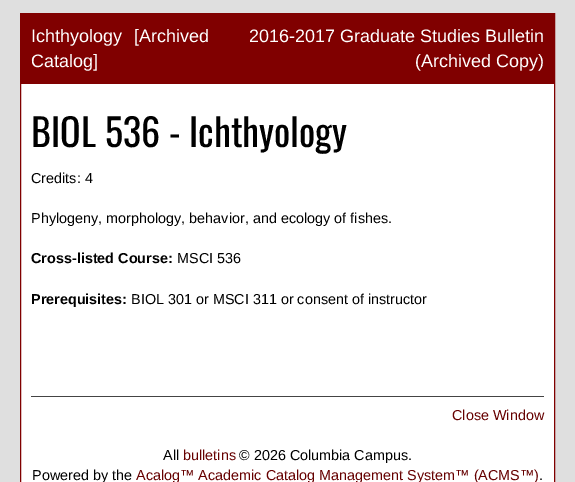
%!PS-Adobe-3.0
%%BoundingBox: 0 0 575 482
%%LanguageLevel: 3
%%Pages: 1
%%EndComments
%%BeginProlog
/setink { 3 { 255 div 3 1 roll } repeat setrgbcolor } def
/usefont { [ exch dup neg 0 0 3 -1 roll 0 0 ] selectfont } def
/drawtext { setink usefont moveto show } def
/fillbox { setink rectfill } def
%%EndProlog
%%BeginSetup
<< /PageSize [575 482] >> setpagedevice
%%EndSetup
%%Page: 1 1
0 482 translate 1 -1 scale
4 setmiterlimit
0 0 575 482 223 223 223 fillbox
21 84 533 398 255 255 255 fillbox
128 0 0 setink
20.5 13.5 534 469 rectstroke
21 14 533 70 128 0 0 fillbox
(Ichthyology) 31 42 /LiberationSans-Regular 18 255 255 255 drawtext
([Archived) 134 42 /LiberationSans-Regular 18 255 255 255 drawtext
(Catalog]) 31 67 /LiberationSans-Regular 18 255 255 255 drawtext
(2016-2017 Graduate Studies Bulletin) 249 42 /LiberationSans-Regular 18 255 255 255 drawtext
(\(Archived Copy\)) 415 67 /LiberationSans-Regular 18 255 255 255 drawtext
(BIOL 536 - Ichthyology) 31 147 /Oswald-Regular 38 0 0 0 drawtext
(Credits: 4) 31 183 /LiberationSans-Regular 14.4 0 0 0 drawtext
(Phylogeny, morphology, behavior, and ecology of fishes.) 31 223 /LiberationSans-Regular 14.4 0 0 0 drawtext
(Cross-listed Course:) 31 263 /LiberationSans-Bold 14.4 0 0 0 drawtext
(MSCI 536) 177 263 /LiberationSans-Regular 14.4 0 0 0 drawtext
(Prerequisites:) 31 304 /LiberationSans-Bold 14.4 0 0 0 drawtext
(BIOL 301 or MSCI 311 or consent of instructor) 131 304 /LiberationSans-Regular 14.4 0 0 0 drawtext
31 396 513 1 68 68 68 fillbox
(Close Window) 452 420 /LiberationSans-Regular 14.4 102 0 0 drawtext
(All) 163 460 /LiberationSans-Regular 14.4 0 0 0 drawtext
(bulletins) 183 460 /LiberationSans-Regular 14.4 102 0 0 drawtext
(© 2026 Columbia Campus.) 239 460 /LiberationSans-Regular 14.4 0 0 0 drawtext
(Powered by the) 32 480 /LiberationSans-Regular 14.4 0 0 0 drawtext
(Acalog™ Academic Catalog Management System™ \(ACMS™\)) 136 480 /LiberationSans-Regular 14.4 102 0 0 drawtext
(.) 539 480 /LiberationSans-Regular 14.4 0 0 0 drawtext
showpage
%%EOF
